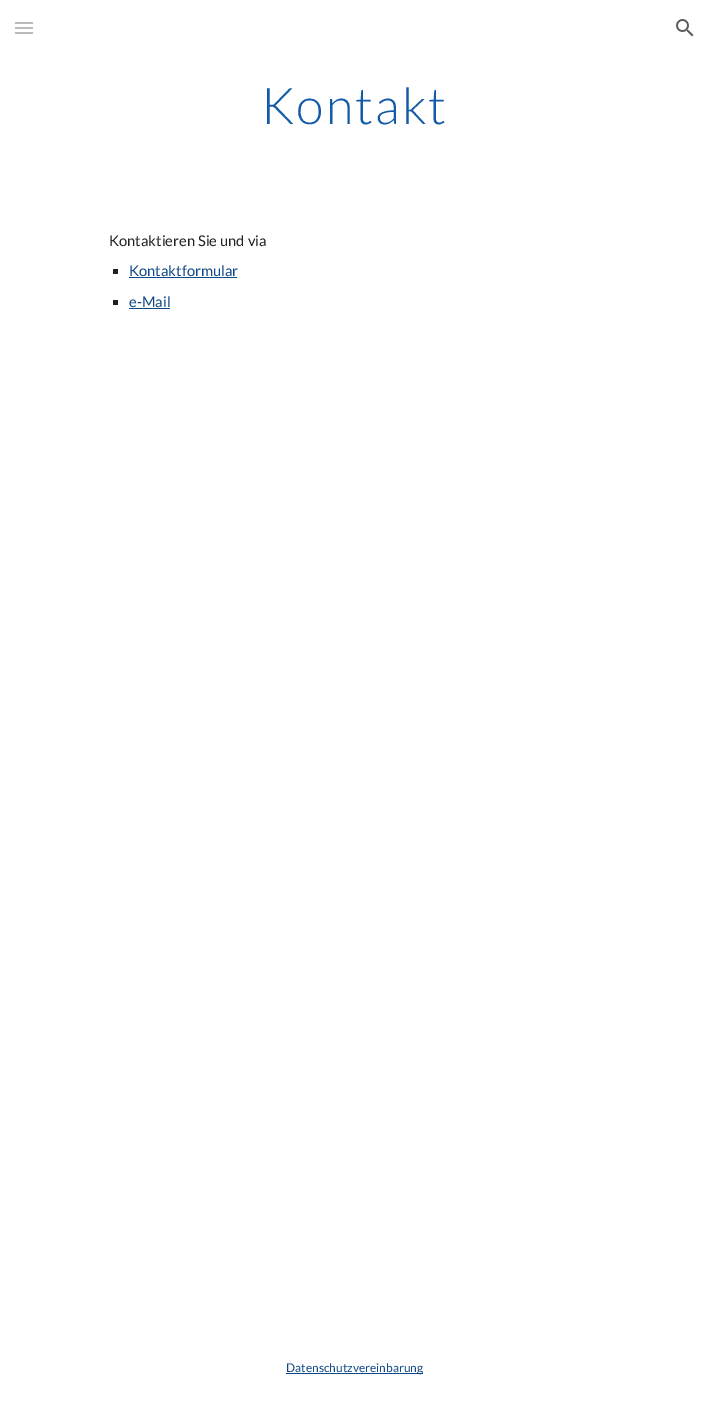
%!PS-Adobe-3.0
%%BoundingBox: 0 0 709 1407
%%LanguageLevel: 3
%%Pages: 1
%%EndComments
%%BeginProlog
/setink { 3 { 255 div 3 1 roll } repeat setrgbcolor } def
/usefont { [ exch dup neg 0 0 3 -1 roll 0 0 ] selectfont } def
/drawtext { setink usefont moveto show } def
/fillbox { setink rectfill } def
/drawimage { 5 dict begin { /h /w /y /x /name } { exch def } forall
  gsave x y translate w h scale
  w h 8 [w 0 0 h 0 0] name (r) file false 3 colorimage grestore end } def
%%EndProlog
%%BeginSetup
<< /PageSize [709 1407] >> setpagedevice
%%EndSetup
%%Page: 1 1
0 1407 translate 1 -1 scale
4 setmiterlimit
0 0 709 1407 255 255 255 fillbox
15 22 18 2 187 187 187 fillbox
15 27 18 2 187 187 187 fillbox
15 32 18 2 187 187 187 fillbox
(assets/img1.rgb) 676 19 18 18 drawimage
/Lato-Light 50.5 usefont
19 91 169 setink
261 124 moveto 2 0 (Kontakt) ashow
(Kontaktieren Sie und via) 109 246 /Lato-Regular 14.75 33 33 33 drawtext
113 269 5 5 33 33 33 fillbox
(Kontaktformular) 129 276 /Lato-Regular 14.75 15 73 135 drawtext
129 277 108 1 15 73 135 fillbox
113 300 5 5 33 33 33 fillbox
(e-Mail) 129 307 /Lato-Regular 14.75 15 73 135 drawtext
129 308 41 1 15 73 135 fillbox
286 1373 137 1 15 73 135 fillbox
(Datenschutzvereinbarung) 286 1372 /Lato-Regular 12 15 73 135 drawtext
showpage
%%EOF
